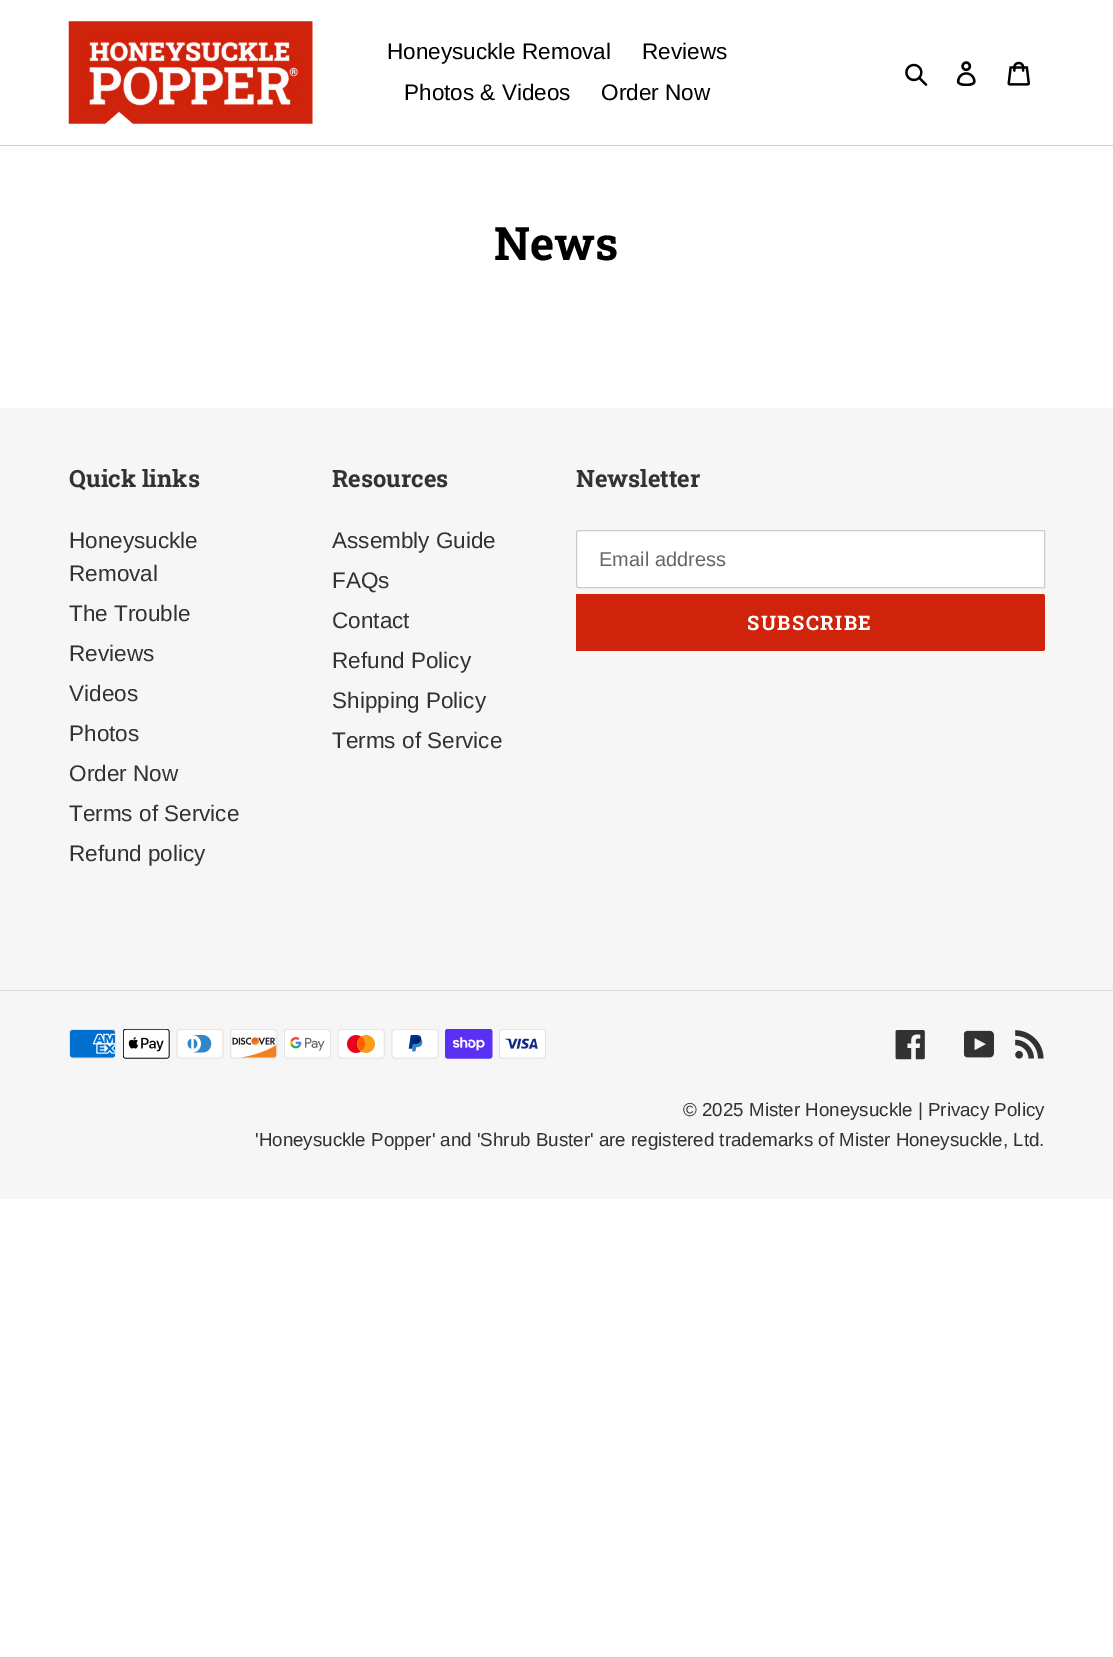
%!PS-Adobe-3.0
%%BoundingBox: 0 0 1113 1657
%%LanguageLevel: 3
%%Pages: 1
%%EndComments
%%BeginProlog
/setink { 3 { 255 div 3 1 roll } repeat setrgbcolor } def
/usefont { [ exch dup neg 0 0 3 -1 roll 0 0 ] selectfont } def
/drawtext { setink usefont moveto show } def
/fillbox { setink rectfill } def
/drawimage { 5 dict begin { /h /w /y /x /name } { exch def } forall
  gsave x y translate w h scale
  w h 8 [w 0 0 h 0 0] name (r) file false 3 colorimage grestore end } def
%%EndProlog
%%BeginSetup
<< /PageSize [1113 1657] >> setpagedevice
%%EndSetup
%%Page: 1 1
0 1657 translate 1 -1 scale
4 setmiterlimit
0 0 1113 1657 255 255 255 fillbox
0 145 1113 1 204 204 204 fillbox
(assets/img1.rgb) 68 21 245 103 drawimage
(Honeysuckle Removal) 387 59 /LiberationSans-Regular 22.5 0 0 0 drawtext
(Reviews) 642 59 /LiberationSans-Regular 22.5 0 0 0 drawtext
(Photos & Videos) 404 100 /LiberationSans-Regular 22.5 0 0 0 drawtext
(Order Now) 601 100 /LiberationSans-Regular 22.5 0 0 0 drawtext
(assets/img2.rgb) 905 63 23 23 drawimage
(assets/img3.rgb) 956 61 20 25 drawimage
(assets/img4.rgb) 1007 61 23 25 drawimage
(News) 494 260 /RobotoSlab-Bold 46 0 0 0 drawtext
0 408 1113 791 246 246 246 fillbox
(Quick links) 69 487 /RobotoSlab-Bold 23.75 51 50 50 drawtext
(Honeysuckle) 69 548 /LiberationSans-Regular 22.5 51 50 50 drawtext
(Removal) 69 581 /LiberationSans-Regular 22.5 51 50 50 drawtext
(The Trouble) 69 621 /LiberationSans-Regular 22.5 51 50 50 drawtext
(Reviews) 69 661 /LiberationSans-Regular 22.5 51 50 50 drawtext
(Videos) 69 701 /LiberationSans-Regular 22.5 51 50 50 drawtext
(Photos) 69 741 /LiberationSans-Regular 22.5 51 50 50 drawtext
(Order Now) 69 781 /LiberationSans-Regular 22.5 51 50 50 drawtext
(Terms of Service) 69 821 /LiberationSans-Regular 22.5 51 50 50 drawtext
(Refund policy) 69 861 /LiberationSans-Regular 22.5 51 50 50 drawtext
(Resources) 332 487 /RobotoSlab-Bold 23.75 51 50 50 drawtext
(Assembly Guide) 332 548 /LiberationSans-Regular 22.5 51 50 50 drawtext
(FAQs) 332 588 /LiberationSans-Regular 22.5 51 50 50 drawtext
(Contact) 332 628 /LiberationSans-Regular 22.5 51 50 50 drawtext
(Refund Policy) 332 668 /LiberationSans-Regular 22.5 51 50 50 drawtext
(Shipping Policy) 332 708 /LiberationSans-Regular 22.5 51 50 50 drawtext
(Terms of Service) 332 748 /LiberationSans-Regular 22.5 51 50 50 drawtext
(Newsletter) 576 487 /RobotoSlab-Bold 23.75 51 50 50 drawtext
255 255 255 setink
578.5 530.5 moveto 1044.5 530.5 lineto 1044.5 587.5 lineto 578.5 587.5 lineto 577.5 587.5 576.5 586.5 576.5 585.5 curveto 576.5 532.5 lineto 576.5 531.5 577.5 530.5 578.5 530.5 curveto closepath gsave fill grestore
204 204 204 setink
stroke
(Email address) 599 566 /LiberationSans-Regular 20 102 102 102 drawtext
208 35 11 setink
576 594 moveto 1042.5 594 lineto 1044 594 1045 595 1045 596.5 curveto 1045 648.5 lineto 1045 650 1044 651 1042.5 651 curveto 576 651 lineto closepath fill
/RobotoSlab-Bold 20 usefont
255 255 255 setink
747 630 moveto 1.5 0 (SUBSCRIBE) ashow
0 990 1113 1 221 221 221 fillbox
(assets/img5.rgb) 69 1029 47 30 drawimage
(assets/img6.rgb) 123 1029 47 30 drawimage
(assets/img7.rgb) 176 1029 48 30 drawimage
(assets/img8.rgb) 230 1029 48 30 drawimage
(assets/img9.rgb) 284 1029 47 30 drawimage
(assets/img10.rgb) 338 1029 47 30 drawimage
(assets/img11.rgb) 391 1029 48 30 drawimage
(assets/img12.rgb) 445 1029 48 30 drawimage
(assets/img13.rgb) 499 1029 47 30 drawimage
(assets/img14.rgb) 895 1030 30 30 drawimage
(assets/img15.rgb) 964 1030 30 28 drawimage
(assets/img16.rgb) 1015 1030 29 29 drawimage
(© 2025 Mister Honeysuckle | Privacy Policy) 683 1116 /LiberationSans-Regular 18.75 51 50 50 drawtext
('Honeysuckle Popper' and 'Shrub Buster' are registered trademarks of Mister Honeysuckle, Ltd.) 255 1146 /LiberationSans-Regular 18.75 51 50 50 drawtext
showpage
%%EOF
